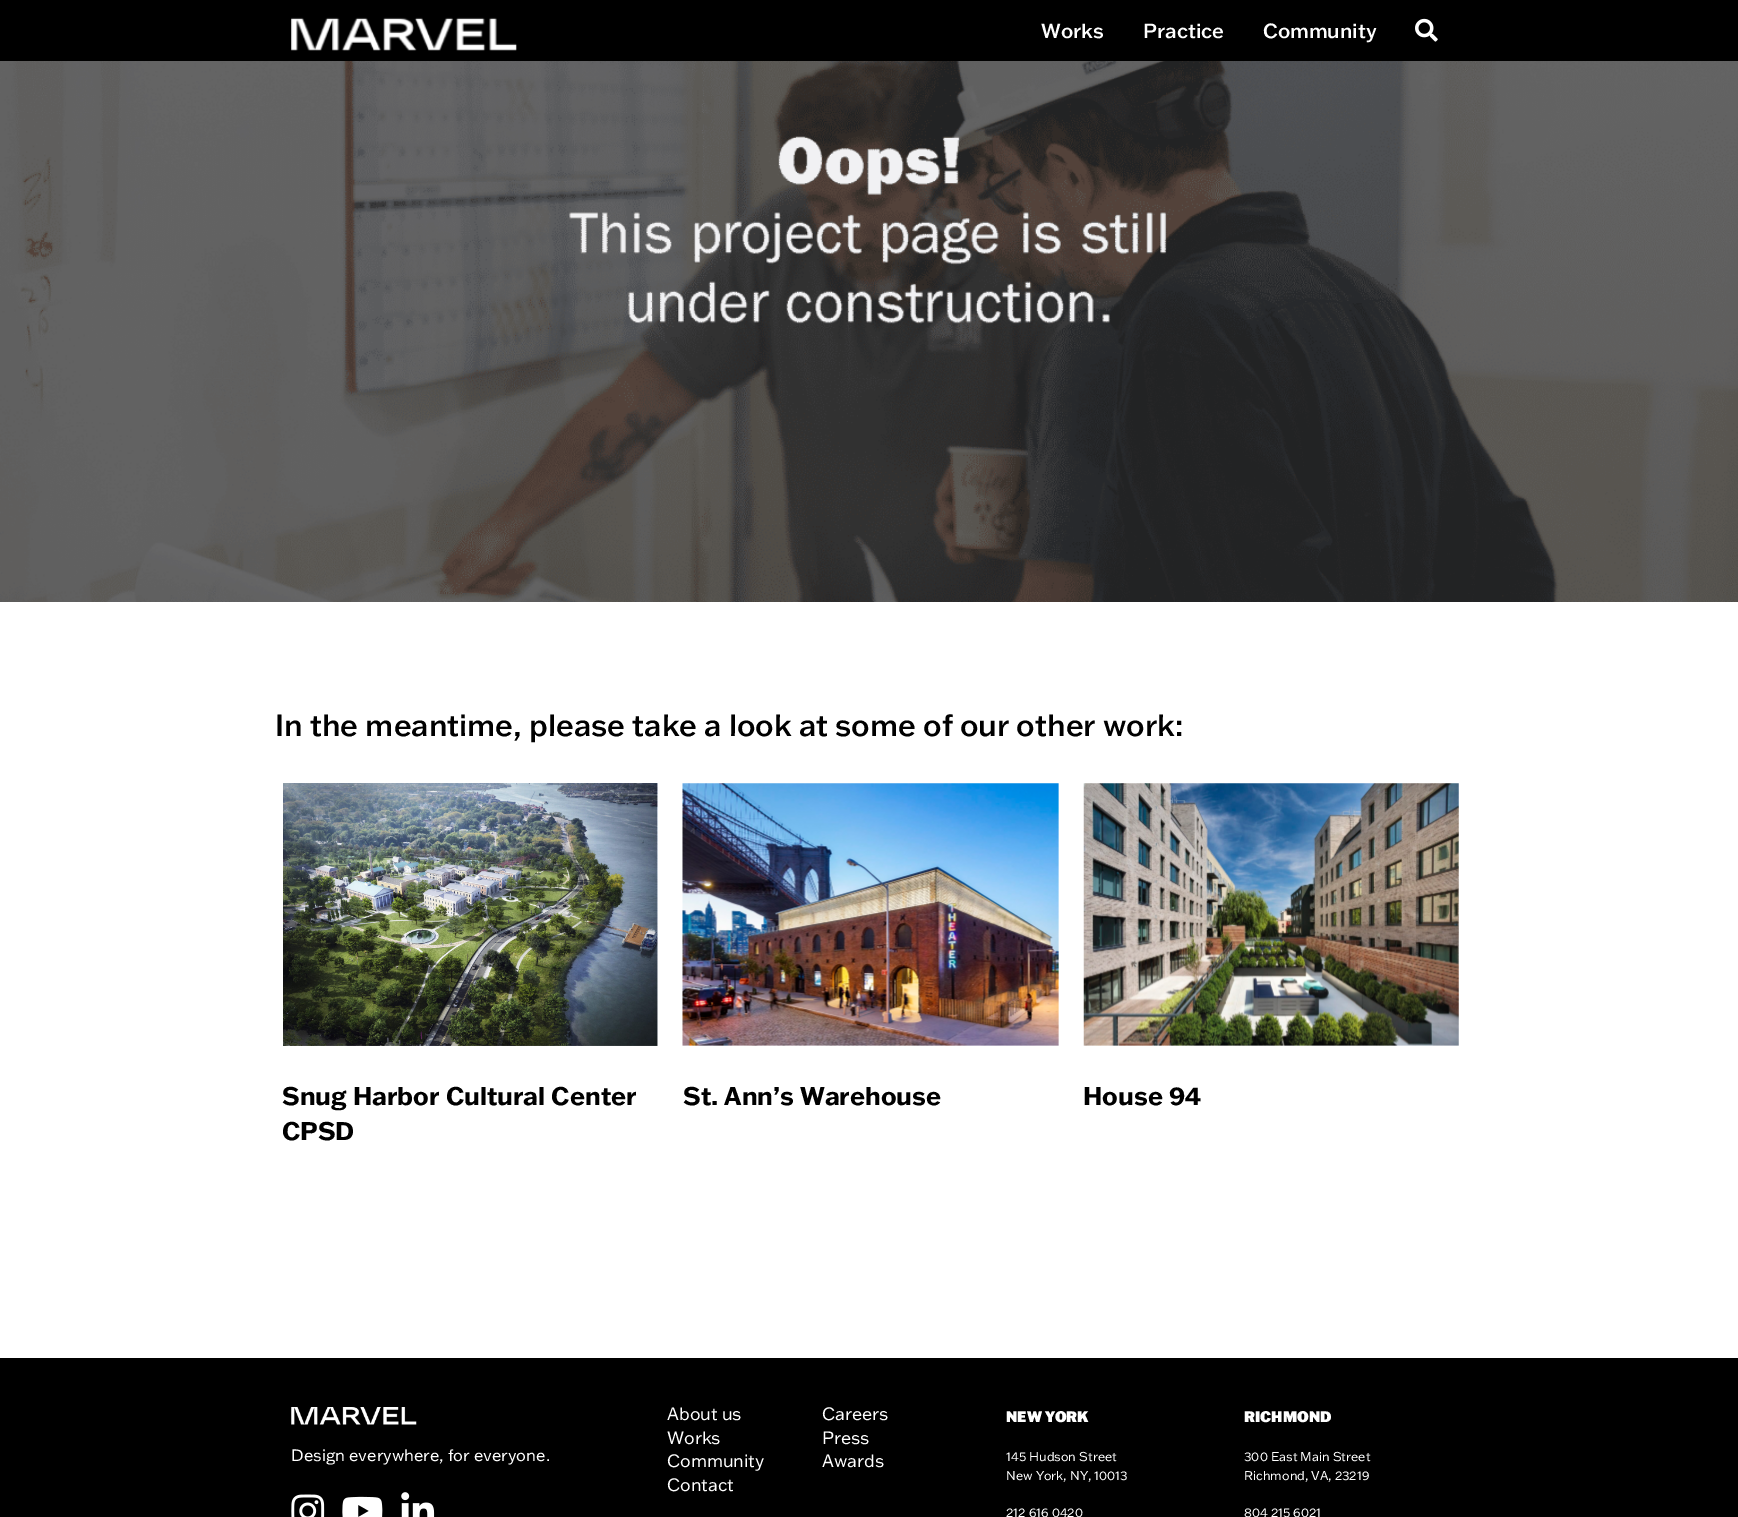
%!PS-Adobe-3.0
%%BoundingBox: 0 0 1738 1517
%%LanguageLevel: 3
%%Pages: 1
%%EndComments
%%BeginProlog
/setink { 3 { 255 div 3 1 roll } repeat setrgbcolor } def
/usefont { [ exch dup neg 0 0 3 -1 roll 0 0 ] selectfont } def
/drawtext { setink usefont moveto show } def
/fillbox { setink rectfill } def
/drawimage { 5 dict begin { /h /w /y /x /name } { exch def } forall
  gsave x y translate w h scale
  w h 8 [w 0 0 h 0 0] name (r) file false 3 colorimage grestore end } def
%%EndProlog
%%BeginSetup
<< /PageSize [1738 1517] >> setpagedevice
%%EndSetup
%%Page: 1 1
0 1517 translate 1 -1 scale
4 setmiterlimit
0 0 1738 1517 255 255 255 fillbox
0 0 1738 61 0 0 0 fillbox
(assets/img1.rgb) 291 17 226 34 drawimage
(Works) 1041 38 /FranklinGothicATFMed-Medium 20 255 255 255 drawtext
(Practice) 1143 38 /FranklinGothicATFMed-Medium 20 255 255 255 drawtext
(Community) 1263 38 /FranklinGothicATFMed-Medium 20 255 255 255 drawtext
(assets/img2.rgb) 1415 18 23 24 drawimage
(assets/img3.rgb) 0 61 1738 541 drawimage
(In the meantime, please take a look at some of our other work:) 275 736 /FranklinGothicATFMed-Medium 30 0 0 0 drawtext
(assets/img4.rgb) 283 783 375 263 drawimage
(Snug Harbor Cultural Center) 282 1105 /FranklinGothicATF-Bold 25 0 0 0 drawtext
(CPSD) 282 1140 /FranklinGothicATF-Bold 25 0 0 0 drawtext
(assets/img5.rgb) 682 783 377 263 drawimage
(St. Ann’s Warehouse) 683 1105 /FranklinGothicATF-Bold 25 0 0 0 drawtext
(assets/img6.rgb) 1083 783 376 263 drawimage
(House 94) 1083 1105 /FranklinGothicATF-Bold 25 0 0 0 drawtext
0 1358 1738 159 0 0 0 fillbox
(assets/img7.rgb) 291 1407 126 18 drawimage
(Design everywhere, for everyone.) 291 1461 /FranklinGothicATF-Regular 16.25 255 255 255 drawtext
(assets/img8.rgb) 291 1494 34 23 drawimage
(assets/img9.rgb) 342 1496 41 21 drawimage
(assets/img10.rgb) 401 1492 34 25 drawimage
(About us) 667 1420 /FranklinGothicATF-Regular 17.5 255 255 255 drawtext
(Works) 667 1444 /FranklinGothicATF-Regular 17.5 255 255 255 drawtext
(Community) 667 1467 /FranklinGothicATF-Regular 17.5 255 255 255 drawtext
(Contact) 667 1491 /FranklinGothicATF-Regular 17.5 255 255 255 drawtext
(Careers) 822 1420 /FranklinGothicATF-Regular 17.5 255 255 255 drawtext
(Press) 822 1444 /FranklinGothicATF-Regular 17.5 255 255 255 drawtext
(Awards) 822 1467 /FranklinGothicATF-Regular 17.5 255 255 255 drawtext
(NEW YORK) 1006 1422 /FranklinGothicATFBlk-Black 15 255 255 255 drawtext
(145 Hudson Street) 1006 1461 /FranklinGothicATF-Regular 12.5 255 255 255 drawtext
(New York, NY, 10013) 1006 1480 /FranklinGothicATF-Regular 12.5 255 255 255 drawtext
(212 616 0420) 1006 1517 /FranklinGothicATF-Regular 12.5 255 255 255 drawtext
(RICHMOND) 1244 1422 /FranklinGothicATFBlk-Black 15 255 255 255 drawtext
(300 East Main Street) 1244 1461 /FranklinGothicATF-Regular 12.5 255 255 255 drawtext
(Richmond, VA, 23219) 1244 1480 /FranklinGothicATF-Regular 12.5 255 255 255 drawtext
(804 215 6021) 1244 1517 /FranklinGothicATF-Regular 12.5 255 255 255 drawtext
showpage
%%EOF
